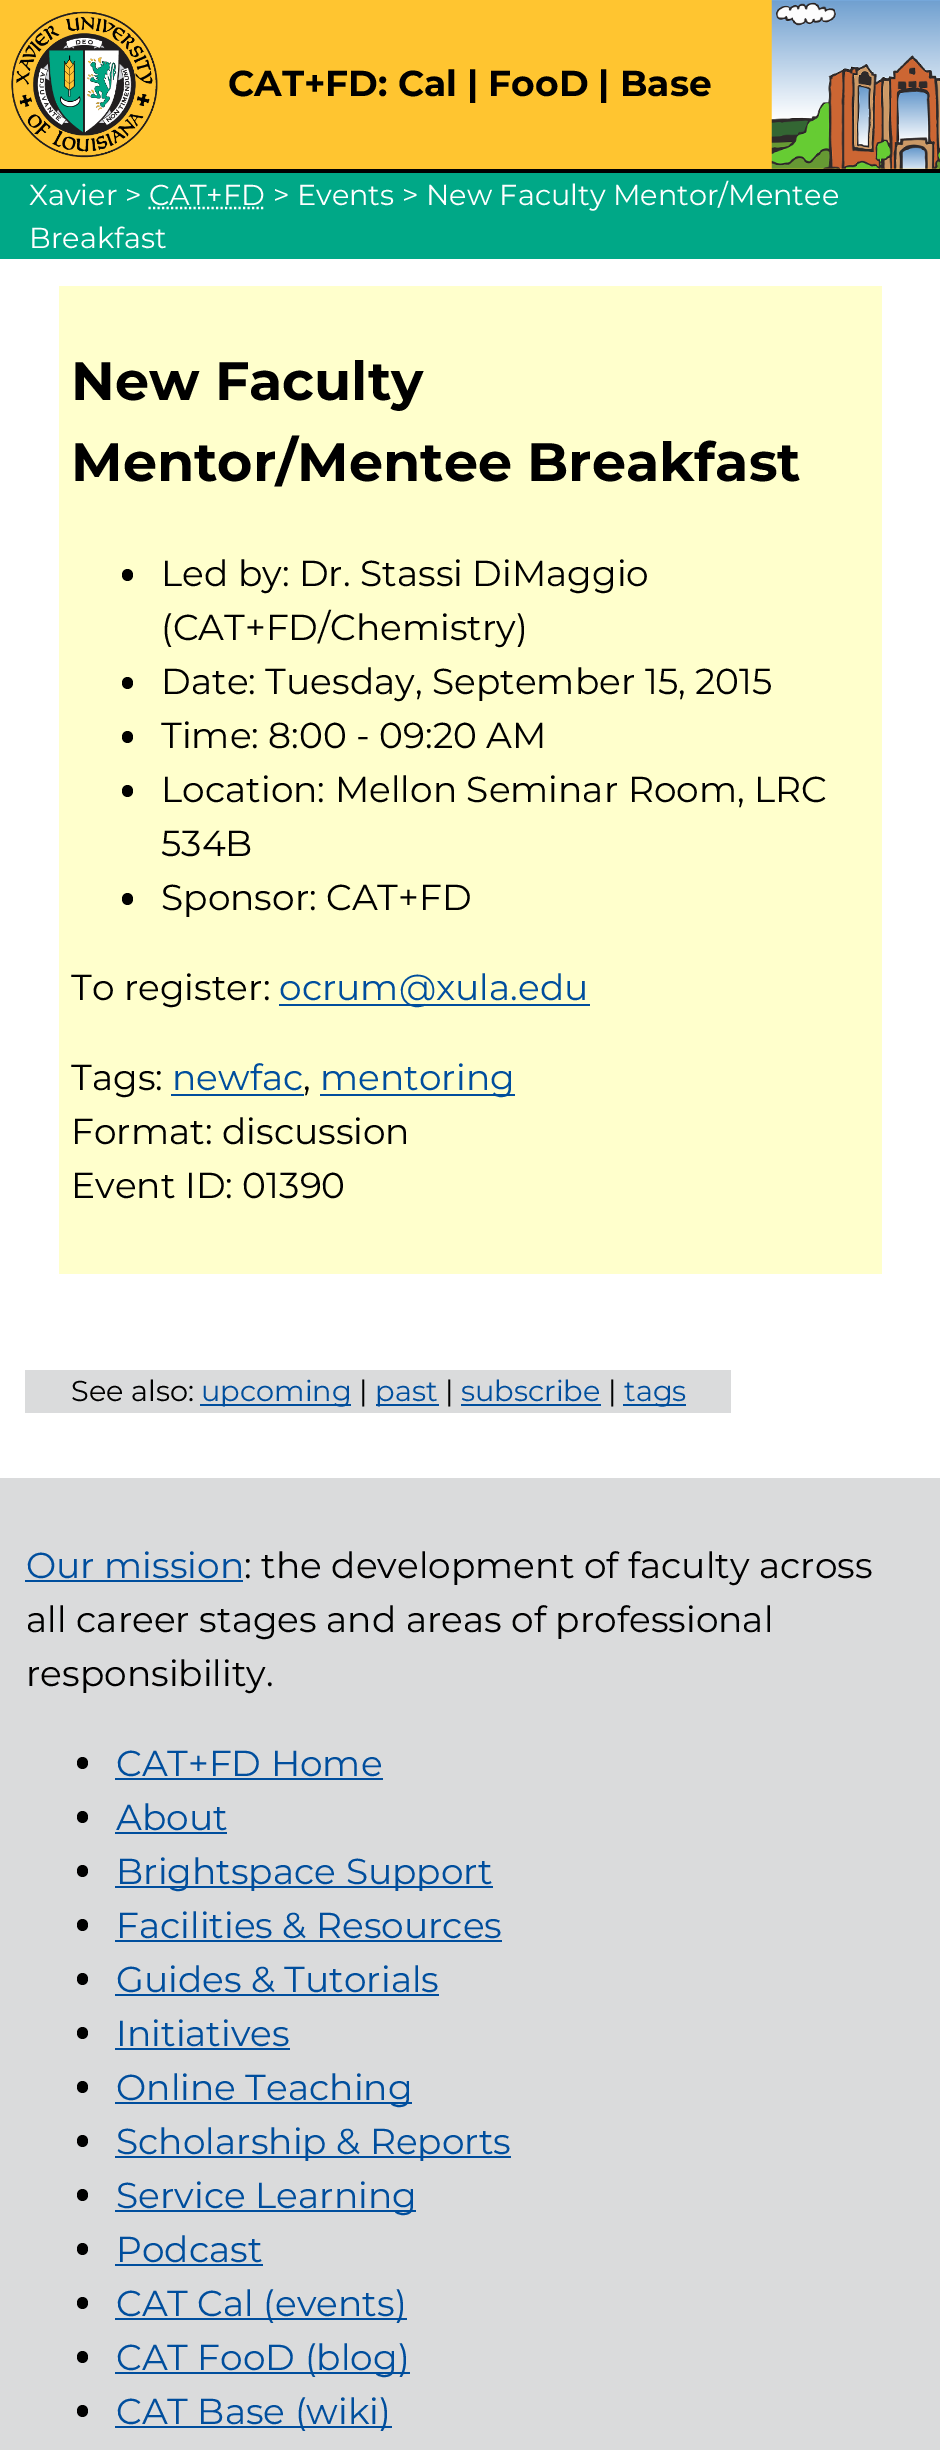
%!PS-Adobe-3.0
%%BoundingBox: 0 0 940 2450
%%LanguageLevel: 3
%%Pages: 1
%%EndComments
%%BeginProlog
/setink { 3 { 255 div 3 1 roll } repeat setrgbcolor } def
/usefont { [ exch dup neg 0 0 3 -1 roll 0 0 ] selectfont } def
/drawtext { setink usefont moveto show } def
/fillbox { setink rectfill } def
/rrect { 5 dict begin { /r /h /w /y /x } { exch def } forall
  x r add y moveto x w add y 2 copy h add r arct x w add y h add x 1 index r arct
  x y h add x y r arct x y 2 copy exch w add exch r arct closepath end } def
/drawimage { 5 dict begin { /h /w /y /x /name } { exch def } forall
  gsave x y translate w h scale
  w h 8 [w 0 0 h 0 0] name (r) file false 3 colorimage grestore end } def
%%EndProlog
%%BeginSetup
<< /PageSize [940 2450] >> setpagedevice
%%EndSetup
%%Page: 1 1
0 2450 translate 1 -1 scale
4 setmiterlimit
0 0 940 2450 255 255 255 fillbox
0 0 940 169 255 197 48 fillbox
0 169 940 4 0 0 0 fillbox
(assets/img1.rgb) 11 11 147 147 drawimage
(CAT+FD: Cal | FooD | Base) 228 96 /Montserrat-Bold 36 0 0 0 drawtext
(assets/img2.rgb) 771 0 169 169 drawimage
0 173 940 86 0 168 135 fillbox
(Xavier > CAT+FD > Events > New Faculty Mentor/Mentee) 29 205 /Montserrat-Regular 28.8 255 255 255 drawtext
2.2 setlinewidth
[2.25 2.25] 0 setdash
148.5 208 moveto 265 208 lineto stroke
(Breakfast) 29 248 /Montserrat-Regular 28.8 255 255 255 drawtext
59 286 823 988 255 255 204 fillbox
(New Faculty) 71 400 /Montserrat-Bold 54 0 0 0 drawtext
(Mentor/Mentee Breakfast) 71 481 /Montserrat-Bold 54 0 0 0 drawtext
122 569 11 12 5.5 rrect fill
(Led by: Dr. Stassi DiMaggio) 161 586 /Montserrat-Regular 36 0 0 0 drawtext
(\(CAT+FD/Chemistry\)) 161 640 /Montserrat-Regular 36 0 0 0 drawtext
122 677 11 12 5.5 rrect fill
(Date: Tuesday, September 15, 2015) 161 694 /Montserrat-Regular 36 0 0 0 drawtext
122 731 11 12 5.5 rrect fill
(Time: 8:00 - 09:20 AM) 161 748 /Montserrat-Regular 36 0 0 0 drawtext
122 785 11 12 5.5 rrect fill
(Location: Mellon Seminar Room, LRC) 161 802 /Montserrat-Regular 36 0 0 0 drawtext
(534B) 161 856 /Montserrat-Regular 36 0 0 0 drawtext
122 893 11 12 5.5 rrect fill
(Sponsor: CAT+FD) 161 910 /Montserrat-Regular 36 0 0 0 drawtext
(To register:) 71 1000 /Montserrat-Regular 36 0 0 0 drawtext
279 1004 311 2 0 78 157 fillbox
(ocrum@xula.edu) 279 1000 /Montserrat-Regular 36 0 78 157 drawtext
(Tags:) 71 1090 /Montserrat-Regular 36 0 0 0 drawtext
(newfac) 172 1090 /Montserrat-Regular 36 0 78 157 drawtext
171 1094 133 2 0 78 157 fillbox
(,) 303 1090 /Montserrat-Regular 36 0 0 0 drawtext
320 1094 195 2 0 78 157 fillbox
(mentoring) 320 1090 /Montserrat-Regular 36 0 78 157 drawtext
(Format: discussion) 71 1144 /Montserrat-Regular 36 0 0 0 drawtext
(Event ID: 01390) 71 1198 /Montserrat-Regular 36 0 0 0 drawtext
25 1370 706 43 218 219 220 fillbox
(See also:) 71 1401 /Montserrat-Regular 28.8 0 0 0 drawtext
200 1404 151 2 0 78 157 fillbox
(upcoming) 201 1401 /Montserrat-Regular 28.8 0 78 157 drawtext
(|) 359 1401 /Montserrat-Regular 28.8 0 0 0 drawtext
376 1404 63 2 0 78 157 fillbox
(past) 375 1401 /Montserrat-Regular 28.8 0 78 157 drawtext
(|) 445 1401 /Montserrat-Regular 28.8 0 0 0 drawtext
(subscribe) 461 1401 /Montserrat-Regular 28.8 0 78 157 drawtext
461 1404 140 2 0 78 157 fillbox
(|) 608 1401 /Montserrat-Regular 28.8 0 0 0 drawtext
623 1404 63 2 0 78 157 fillbox
(tags) 624 1401 /Montserrat-Regular 28.8 0 78 157 drawtext
0 1478 940 972 218 219 220 fillbox
(Our mission) 26 1578 /Montserrat-Regular 36 0 78 157 drawtext
25 1580 218 2 0 78 157 fillbox
(: the development of faculty across) 244 1578 /Montserrat-Regular 36 0 0 0 drawtext
(all career stages and areas of professional) 26 1632 /Montserrat-Regular 36 0 0 0 drawtext
(responsibility.) 26 1686 /Montserrat-Regular 36 0 0 0 drawtext
77 1757 11 12 5.5 rrect fill
(CAT+FD Home) 116 1776 /Montserrat-Regular 36 0 78 157 drawtext
115 1778 268 2 0 78 157 fillbox
0 0 0 setink
77 1811 11 12 5.5 rrect fill
(About) 116 1830 /Montserrat-Regular 36 0 78 157 drawtext
115 1832 112 2 0 78 157 fillbox
0 0 0 setink
77 1865 11 12 5.5 rrect fill
115 1886 378 2 0 78 157 fillbox
(Brightspace Support) 116 1884 /Montserrat-Regular 36 0 78 157 drawtext
0 0 0 setink
77 1919 11 12 5.5 rrect fill
(Facilities & Resources) 116 1938 /Montserrat-Regular 36 0 78 157 drawtext
115 1940 387 2 0 78 157 fillbox
0 0 0 setink
77 1973 11 12 5.5 rrect fill
(Guides & Tutorials) 116 1992 /Montserrat-Regular 36 0 78 157 drawtext
115 1994 324 2 0 78 157 fillbox
0 0 0 setink
77 2027 11 12 5.5 rrect fill
(Initiatives) 116 2046 /Montserrat-Regular 36 0 78 157 drawtext
115 2048 175 2 0 78 157 fillbox
0 0 0 setink
77 2081 11 12 5.5 rrect fill
115 2102 297 2 0 78 157 fillbox
(Online Teaching) 116 2100 /Montserrat-Regular 36 0 78 157 drawtext
0 0 0 setink
77 2135 11 12 5.5 rrect fill
115 2156 396 2 0 78 157 fillbox
(Scholarship & Reports) 116 2154 /Montserrat-Regular 36 0 78 157 drawtext
0 0 0 setink
77 2189 11 12 5.5 rrect fill
115 2210 301 2 0 78 157 fillbox
(Service Learning) 116 2208 /Montserrat-Regular 36 0 78 157 drawtext
0 0 0 setink
77 2243 11 12 5.5 rrect fill
(Podcast) 116 2262 /Montserrat-Regular 36 0 78 157 drawtext
115 2264 148 2 0 78 157 fillbox
0 0 0 setink
77 2297 11 12 5.5 rrect fill
115 2318 292 2 0 78 157 fillbox
(CAT Cal \(events\)) 116 2316 /Montserrat-Regular 36 0 78 157 drawtext
0 0 0 setink
77 2351 11 12 5.5 rrect fill
115 2372 295 2 0 78 157 fillbox
(CAT FooD \(blog\)) 116 2370 /Montserrat-Regular 36 0 78 157 drawtext
0 0 0 setink
77 2405 11 12 5.5 rrect fill
115 2426 277 2 0 78 157 fillbox
(CAT Base \(wiki\)) 116 2424 /Montserrat-Regular 36 0 78 157 drawtext
showpage
%%EOF
